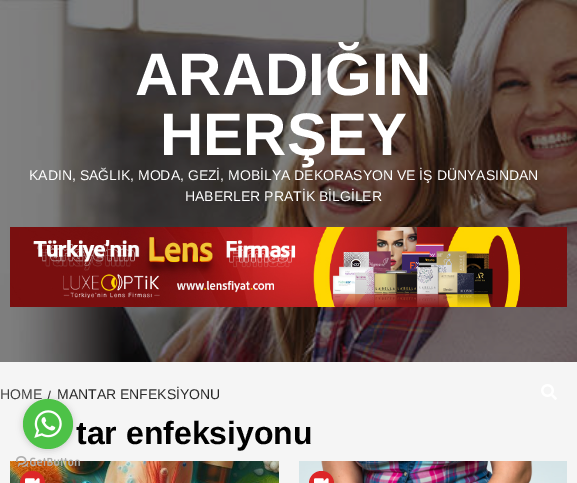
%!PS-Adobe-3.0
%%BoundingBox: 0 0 577 483
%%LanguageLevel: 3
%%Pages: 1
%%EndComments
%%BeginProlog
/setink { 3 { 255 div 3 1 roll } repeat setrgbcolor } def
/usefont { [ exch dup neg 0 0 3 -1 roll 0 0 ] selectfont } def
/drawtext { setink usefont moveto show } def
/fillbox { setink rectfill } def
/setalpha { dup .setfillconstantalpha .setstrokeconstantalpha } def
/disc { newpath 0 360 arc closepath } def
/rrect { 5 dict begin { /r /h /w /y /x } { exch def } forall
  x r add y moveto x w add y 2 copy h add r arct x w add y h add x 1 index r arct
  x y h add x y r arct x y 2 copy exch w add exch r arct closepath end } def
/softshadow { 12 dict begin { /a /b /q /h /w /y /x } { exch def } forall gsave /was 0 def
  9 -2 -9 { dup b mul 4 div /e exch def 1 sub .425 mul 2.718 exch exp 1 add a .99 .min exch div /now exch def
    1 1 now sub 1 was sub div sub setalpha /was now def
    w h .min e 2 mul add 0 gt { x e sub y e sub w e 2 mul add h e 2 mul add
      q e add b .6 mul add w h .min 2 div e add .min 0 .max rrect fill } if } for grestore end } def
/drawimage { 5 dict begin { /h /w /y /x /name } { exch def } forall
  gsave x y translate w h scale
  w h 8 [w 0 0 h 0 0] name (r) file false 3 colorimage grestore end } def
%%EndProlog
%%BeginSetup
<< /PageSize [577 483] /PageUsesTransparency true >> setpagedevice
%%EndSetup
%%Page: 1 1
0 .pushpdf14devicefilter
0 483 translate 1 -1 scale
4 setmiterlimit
0 0 577 483 245 245 245 fillbox
(assets/img1.rgb) 0 0 577 362 drawimage
(ARADIĞIN) 135 95 /LiberationSans-Bold 60 255 255 255 drawtext
(HERŞEY) 160 155 /LiberationSans-Bold 60 255 255 255 drawtext
(KADIN, SAĞLIK, MODA, GEZİ, MOBİLYA DEKORASYON VE İŞ DÜNYASINDAN) 29 180 /LiberationSans-Regular 14 255 255 255 drawtext
(HABERLER PRATİK BİLGİLER) 185 201 /LiberationSans-Regular 14 255 255 255 drawtext
(assets/img2.rgb) 10 227 557 80 drawimage
(assets/img3.rgb) 541 384 16 16 drawimage
(HOME) 0 399 /LiberationSans-Regular 14 64 64 64 drawtext
(/) 47 401 /LiberationSans-Regular 14 42 42 42 drawtext
(MANTAR ENFEKSİYONU) 57 399 /LiberationSans-Regular 14 42 42 42 drawtext
(tar enfeksiyonu) 76 444 /LiberationSans-Bold 32 0 0 0 drawtext
(assets/img4.rgb) 10 461 269 22 drawimage
221 38 39 setink
32.5 483.5 12.5 disc fill
(assets/img5.rgb) 25 478 15 5 drawimage
(assets/img6.rgb) 299 461 268 22 drawimage
321.5 483.5 12.5 disc fill
(assets/img5.rgb) 314 478 15 5 drawimage
(assets/img8.rgb) 16 456 64 11 drawimage
136 136 136 setink
23 400 50 50 25 3.5 0.4 softshadow
77 194 71 setink
48 424 25 disc fill
(assets/img7.rgb) 34 410 28 28 drawimage
.poppdf14devicefilter showpage
%%EOF
